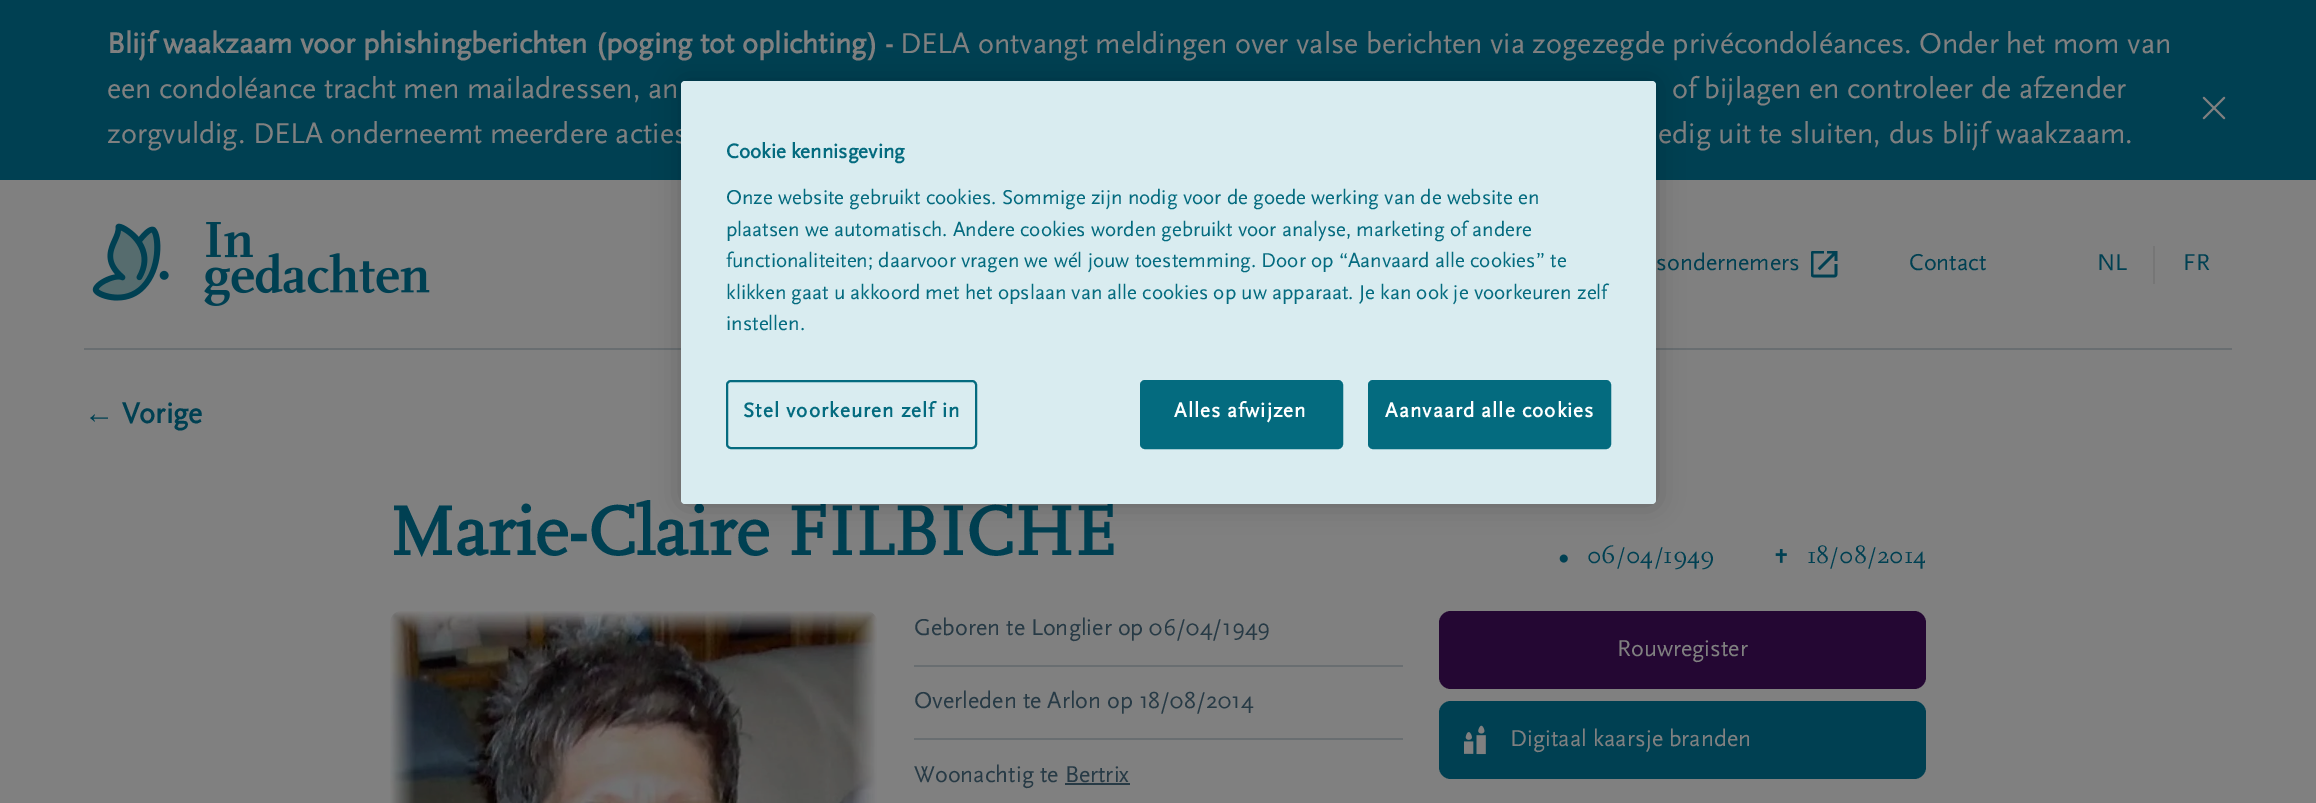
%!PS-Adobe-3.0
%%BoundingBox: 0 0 2316 803
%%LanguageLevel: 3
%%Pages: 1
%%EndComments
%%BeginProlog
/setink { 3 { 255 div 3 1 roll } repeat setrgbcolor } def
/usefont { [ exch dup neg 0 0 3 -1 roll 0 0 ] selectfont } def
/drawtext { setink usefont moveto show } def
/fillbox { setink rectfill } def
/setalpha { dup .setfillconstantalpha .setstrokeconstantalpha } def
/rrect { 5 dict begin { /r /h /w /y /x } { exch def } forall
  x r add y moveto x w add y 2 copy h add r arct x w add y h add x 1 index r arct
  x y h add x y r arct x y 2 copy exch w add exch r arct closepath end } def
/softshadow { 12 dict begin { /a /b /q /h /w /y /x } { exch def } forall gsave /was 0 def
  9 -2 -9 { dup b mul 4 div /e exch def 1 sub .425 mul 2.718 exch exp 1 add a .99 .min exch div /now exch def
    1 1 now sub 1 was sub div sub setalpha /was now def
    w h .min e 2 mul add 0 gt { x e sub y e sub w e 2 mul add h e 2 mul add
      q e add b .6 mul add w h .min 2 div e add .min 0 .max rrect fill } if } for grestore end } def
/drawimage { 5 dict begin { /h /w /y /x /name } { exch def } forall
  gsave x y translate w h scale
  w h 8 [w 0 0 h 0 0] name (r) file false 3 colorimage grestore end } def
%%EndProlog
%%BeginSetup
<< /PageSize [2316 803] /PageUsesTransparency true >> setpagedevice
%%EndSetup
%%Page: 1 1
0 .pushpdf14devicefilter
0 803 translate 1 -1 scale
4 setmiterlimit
0 0 2316 803 128 128 128 fillbox
0 0 2316 180 0 64 82 fillbox
(Blijf waakzaam voor phishingberichten \(poging tot oplichting\) -) 107 53 /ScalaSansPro-Bold 30 128 128 128 drawtext
(DELA ontvangt meldingen over valse berichten via zogezegde privécondoléances. Onder het mom van) 900 53 /ScalaSansPro-Regular 30 128 128 128 drawtext
(een condoléance tracht men mailadressen, an) 107 98 /ScalaSansPro-Regular 30 128 128 128 drawtext
(of bijlagen en controleer de afzender) 1672 98 /ScalaSansPro-Regular 30 128 128 128 drawtext
(assets/img1.rgb) 2202 96 24 24 drawimage
(zorgvuldig. DELA onderneemt meerdere acties) 107 143 /ScalaSansPro-Regular 30 128 128 128 drawtext
(edig uit te sluiten, dus blijf waakzaam.) 1658 143 /ScalaSansPro-Regular 30 128 128 128 drawtext
84 348 2148 2 105 110 113 fillbox
(assets/img2.rgb) 92 222 338 84 drawimage
(sondernemers) 1656 270 /ScalaSansPro-Regular 24 0 64 82 drawtext
(assets/img3.rgb) 1811 251 27 27 drawimage
(Contact) 1909 270 /ScalaSansPro-Regular 24 0 64 82 drawtext
(NL) 2097 270 /ScalaSansPro-Regular 24 0 64 82 drawtext
2153 246 2 38 118 118 118 fillbox
(FR) 2183 270 /ScalaSansPro-Regular 24 0 64 82 drawtext
(←) 84 423 /LiberationSans-Bold 30 0 64 82 drawtext
(Vorige) 122 423 /ScalaSansPro-Bold 30 0 64 82 drawtext
(Marie-Claire FILBICHE) 390 555 /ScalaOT-Bold 72 0 64 82 drawtext
(assets/img4.rgb) 1559 554 9 9 drawimage
(06/04/1949) 1587 563 /ScalaOT-Regular 24 0 64 82 drawtext
(assets/img5.rgb) 1775 549 12 14 drawimage
(18/08/2014) 1807 563 /ScalaOT-Regular 24 0 64 82 drawtext
(assets/img6.rgb) 390 611 487 192 drawimage
914 665 489 2 105 110 113 fillbox
(Geboren te Longlier op 06/04/1949) 914 635 /ScalaSansPro-Regular 24 39 58 69 drawtext
914 738 489 2 105 110 113 fillbox
(Overleden te Arlon op 18/08/2014) 914 708 /ScalaSansPro-Regular 24 39 58 69 drawtext
(Woonachtig te Bertrix) 914 782 /ScalaSansPro-Regular 24 39 58 69 drawtext
1065 783 65 2 39 58 69 fillbox
36 7 51 setink
1439 611 487 78 12 rrect fill
(Rouwregister) 1617 656 /ScalaSansPro-Regular 24 128 128 128 drawtext
0 64 82 setink
1439 701 487 78 12 rrect fill
(assets/img7.rgb) 1464 725 22 30 drawimage
(Digitaal kaarsje branden) 1510 746 /ScalaSansPro-Regular 24 128 128 128 drawtext
0 0 0 setink
681 81 975 423 4 13.5 0.2 softshadow
217 236 240 setink
681 81 975 423 4 rrect fill
(Cookie kennisgeving) 726 158 /ScalaSansPro-Bold 21 4 107 127 drawtext
(Onze website gebruikt cookies. Sommige zijn nodig voor de goede werking van de website en) 726 204 /ScalaSansPro-Regular 21 4 107 127 drawtext
(plaatsen we automatisch. Andere cookies worden gebruikt voor analyse, marketing of andere) 726 236 /ScalaSansPro-Regular 21 4 107 127 drawtext
(functionaliteiten; daarvoor vragen we wél jouw toestemming. Door op “Aanvaard alle cookies” te) 726 267 /ScalaSansPro-Regular 21 4 107 127 drawtext
(klikken gaat u akkoord met het opslaan van alle cookies op uw apparaat. Je kan ook je voorkeuren zelf) 726 299 /ScalaSansPro-Regular 21 4 107 127 drawtext
(instellen.) 726 330 /ScalaSansPro-Regular 21 4 107 127 drawtext
2 setlinewidth
727 381 249 67 4 rrect stroke
/ScalaSansPro-Bold 21 usefont
743 417 moveto 1.05 0 (Stel voorkeuren zelf in) ashow
1141 381 201 67 4 rrect gsave fill grestore
stroke
255 255 255 setink
1174 417 moveto 1.05 0 (Alles afwijzen) ashow
4 107 127 setink
1369 381 241 67 4 rrect gsave fill grestore
stroke
255 255 255 setink
1385 417 moveto 1.05 0 (Aanvaard alle cookies) ashow
.poppdf14devicefilter showpage
%%EOF
